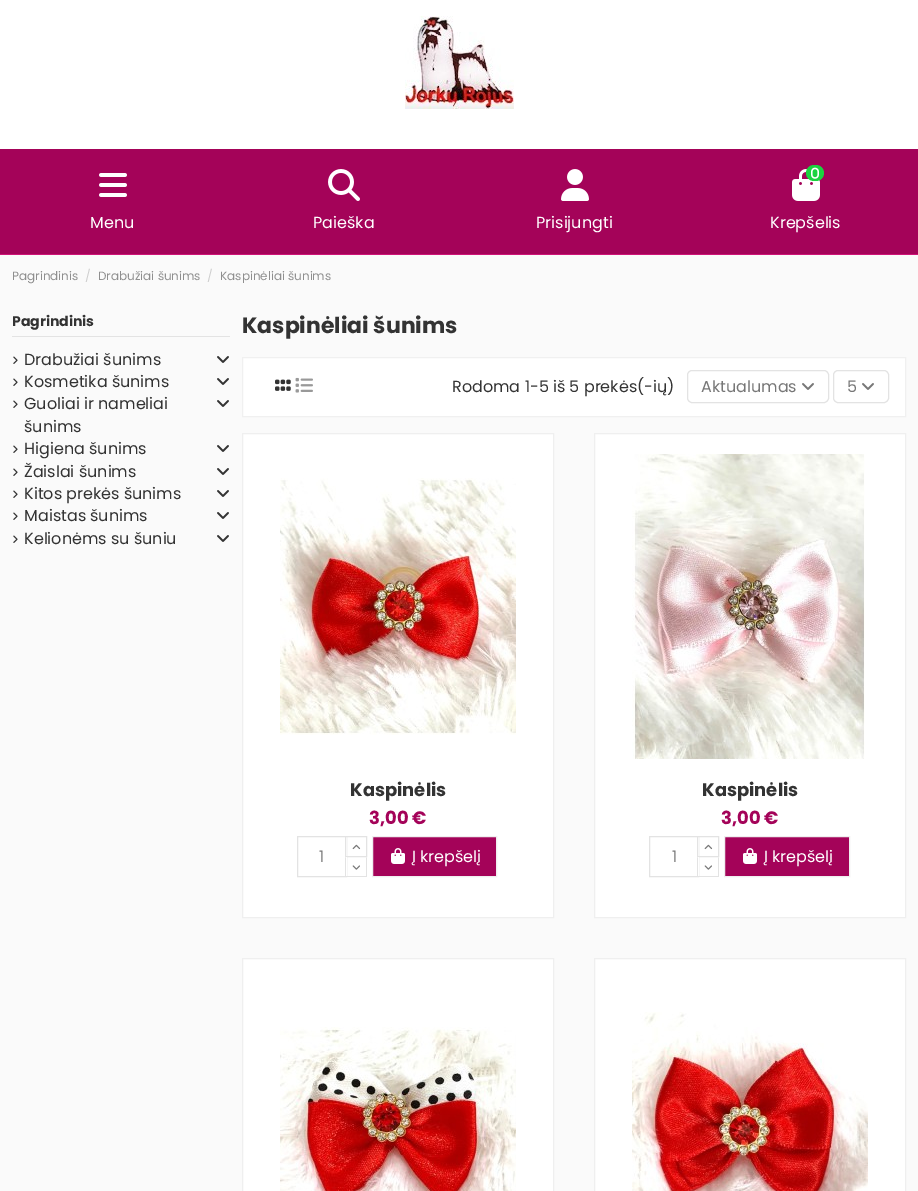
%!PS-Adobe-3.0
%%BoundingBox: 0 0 918 1191
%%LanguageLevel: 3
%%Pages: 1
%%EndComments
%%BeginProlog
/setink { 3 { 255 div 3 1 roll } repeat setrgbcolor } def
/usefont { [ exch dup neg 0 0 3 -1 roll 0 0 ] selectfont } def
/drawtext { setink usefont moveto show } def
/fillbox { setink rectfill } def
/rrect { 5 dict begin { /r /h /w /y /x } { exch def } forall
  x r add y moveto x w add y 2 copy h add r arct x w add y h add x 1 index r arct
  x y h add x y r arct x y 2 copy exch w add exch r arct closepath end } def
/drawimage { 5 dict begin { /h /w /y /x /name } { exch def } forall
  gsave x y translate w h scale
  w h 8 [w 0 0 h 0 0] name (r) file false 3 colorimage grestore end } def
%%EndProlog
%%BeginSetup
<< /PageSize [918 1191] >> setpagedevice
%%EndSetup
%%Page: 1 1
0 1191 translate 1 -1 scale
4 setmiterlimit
0 0 918 1191 255 255 255 fillbox
0 254 918 1 207 19 119 fillbox
(assets/img1.rgb) 405 16 109 93 drawimage
0 149 918 105 164 3 89 fillbox
(assets/img2.rgb) 99 173 28 24 drawimage
(Menu) 90 228 /Poppins-Regular 16 255 255 255 drawtext
(assets/img3.rgb) 328 169 32 32 drawimage
(Paieška) 313 228 /Poppins-Regular 16 255 255 255 drawtext
(assets/img4.rgb) 561 169 28 32 drawimage
(Prisijungti) 536 228 /Poppins-Regular 16 255 255 255 drawtext
(assets/img6.rgb) 792 169 28 32 drawimage
27 211 63 setink
806 165 18 16 8 rrect fill
(assets/img5.rgb) 811 167 8 12 drawimage
(Krepšelis) 770 228 /Poppins-Regular 16 255 255 255 drawtext
0 255 918 936 250 250 250 fillbox
(Pagrindinis) 12 280 /Poppins-Regular 12 143 143 143 drawtext
(/) 85 280 /Poppins-Regular 12 207 207 207 drawtext
(Drabužiai šunims) 98 280 /Poppins-Regular 12 143 143 143 drawtext
(/) 207 280 /Poppins-Regular 12 207 207 207 drawtext
(Kaspinėliai šunims) 220 280 /Poppins-Regular 12 143 143 143 drawtext
12 336 218 1 227 227 227 fillbox
(Pagrindinis) 12 326 /Poppins-Bold 14 51 51 51 drawtext
(assets/img7.rgb) 13 356 5 8 drawimage
(Drabužiai šunims) 24 365 /Poppins-Regular 16 51 51 51 drawtext
(assets/img8.rgb) 217 356 12 7 drawimage
(assets/img7.rgb) 13 378 5 8 drawimage
(Kosmetika šunims) 24 387 /Poppins-Regular 16 51 51 51 drawtext
(assets/img8.rgb) 217 378 12 7 drawimage
(assets/img7.rgb) 13 400 5 8 drawimage
(Guoliai ir nameliai) 24 409 /Poppins-Regular 16 51 51 51 drawtext
(šunims) 24 432 /Poppins-Regular 16 51 51 51 drawtext
(assets/img8.rgb) 217 400 12 7 drawimage
(assets/img7.rgb) 13 445 5 8 drawimage
(Higiena šunims) 24 454 /Poppins-Regular 16 51 51 51 drawtext
(assets/img8.rgb) 217 445 12 7 drawimage
(assets/img7.rgb) 13 468 5 8 drawimage
(Žaislai šunims) 24 477 /Poppins-Regular 16 51 51 51 drawtext
(assets/img8.rgb) 217 468 12 7 drawimage
(assets/img7.rgb) 13 490 5 8 drawimage
(Kitos prekės šunims) 24 499 /Poppins-Regular 16 51 51 51 drawtext
(assets/img8.rgb) 217 490 12 7 drawimage
(assets/img7.rgb) 13 512 5 8 drawimage
(Maistas šunims) 24 521 /Poppins-Regular 16 51 51 51 drawtext
(assets/img8.rgb) 217 512 12 7 drawimage
(assets/img7.rgb) 13 535 5 8 drawimage
(Kelionėms su šuniu) 24 544 /Poppins-Regular 16 51 51 51 drawtext
(assets/img8.rgb) 217 535 12 7 drawimage
(Kaspinėliai šunims) 242 333 /Poppins-Bold 22 51 51 51 drawtext
255 255 255 setink
242.5 357.5 moveto 905.5 357.5 lineto 905.5 416.5 lineto 242.5 416.5 lineto closepath gsave fill grestore
240 240 240 setink
stroke
(assets/img9.rgb) 275 379 16 12 drawimage
(assets/img10.rgb) 295 377 18 16 drawimage
(Rodoma 1-5 iš 5 prekės\(-ių\)) 452 392 /Poppins-Regular 16 51 51 51 drawtext
227 227 227 setink
687.5 370.5 141 32 4.5 rrect stroke
(Aktualumas) 701 392 /Poppins-Regular 16 119 119 119 drawtext
(assets/img11.rgb) 802 383 12 7 drawimage
227 227 227 setink
833.5 370.5 55 32 4.5 rrect stroke
(5) 847 392 /Poppins-Regular 16 119 119 119 drawtext
(assets/img11.rgb) 862 383 12 7 drawimage
255 255 255 setink
242.5 433.5 moveto 553.5 433.5 lineto 553.5 917.5 lineto 242.5 917.5 lineto closepath gsave fill grestore
239 239 239 setink
stroke
(assets/img12.rgb) 280 478 236 257 drawimage
(Kaspinėlis) 350 796 /Poppins-Bold 18 51 51 51 drawtext
(3,00 €) 369 824 /Poppins-Bold 18 164 3 89 drawtext
227 227 227 setink
297.5 836.5 49 40 rectstroke
(1) 319 862 /Poppins-Regular 16 119 119 119 drawtext
346 837 1 19 255 255 255 fillbox
227 227 227 setink
345.5 836.5 21 20 rectstroke
(assets/img13.rgb) 352 844 9 6 drawimage
346 857 1 19 255 255 255 fillbox
227 227 227 setink
367 857 moveto 367 877 lineto 366 876 lineto 366 858 lineto closepath fill
345 876 22 1 227 227 227 fillbox
345 877 moveto 345 857 lineto 346 858 lineto 346 876 lineto closepath fill
(assets/img14.rgb) 352 865 8 5 drawimage
164 3 89 setink
372.5 836.5 moveto 496.5 836.5 lineto 496.5 876.5 lineto 372.5 876.5 lineto closepath gsave fill grestore
239 239 239 setink
stroke
(assets/img15.rgb) 391 848 14 16 drawimage
(Į krepšelį) 412 862 /Poppins-Regular 16 255 255 255 drawtext
594.5 433.5 moveto 905.5 433.5 lineto 905.5 917.5 lineto 594.5 917.5 lineto closepath gsave fill grestore
239 239 239 setink
stroke
(assets/img16.rgb) 632 454 233 305 drawimage
(Kaspinėlis) 702 796 /Poppins-Bold 18 51 51 51 drawtext
(3,00 €) 721 824 /Poppins-Bold 18 164 3 89 drawtext
227 227 227 setink
649.5 836.5 49 40 rectstroke
(1) 672 862 /Poppins-Regular 16 119 119 119 drawtext
698 837 1 19 255 255 255 fillbox
227 227 227 setink
697.5 836.5 21 20 rectstroke
(assets/img13.rgb) 704 844 9 6 drawimage
698 857 1 19 255 255 255 fillbox
227 227 227 setink
719 857 moveto 719 877 lineto 718 876 lineto 718 858 lineto closepath fill
697 876 22 1 227 227 227 fillbox
697 877 moveto 697 857 lineto 698 858 lineto 698 876 lineto closepath fill
(assets/img14.rgb) 704 865 8 5 drawimage
164 3 89 setink
724.5 836.5 moveto 849.5 836.5 lineto 849.5 876.5 lineto 724.5 876.5 lineto closepath gsave fill grestore
239 239 239 setink
stroke
(assets/img15.rgb) 743 848 14 16 drawimage
(Į krepšelį) 764 862 /Poppins-Regular 16 255 255 255 drawtext
242.5 958.5 moveto 553.5 958.5 lineto 553.5 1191.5 lineto 242.5 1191.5 lineto closepath gsave fill grestore
239 239 239 setink
stroke
(assets/img17.rgb) 280 1027 236 164 drawimage
255 255 255 setink
594.5 958.5 moveto 905.5 958.5 lineto 905.5 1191.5 lineto 594.5 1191.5 lineto closepath gsave fill grestore
239 239 239 setink
stroke
(assets/img18.rgb) 632 1012 236 179 drawimage
showpage
%%EOF
